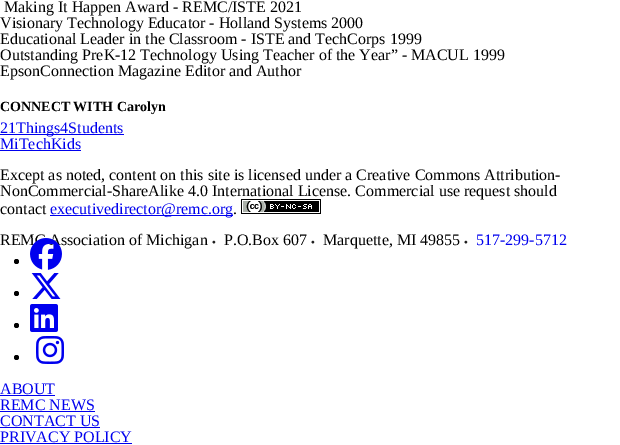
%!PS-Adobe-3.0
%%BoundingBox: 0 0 620 445
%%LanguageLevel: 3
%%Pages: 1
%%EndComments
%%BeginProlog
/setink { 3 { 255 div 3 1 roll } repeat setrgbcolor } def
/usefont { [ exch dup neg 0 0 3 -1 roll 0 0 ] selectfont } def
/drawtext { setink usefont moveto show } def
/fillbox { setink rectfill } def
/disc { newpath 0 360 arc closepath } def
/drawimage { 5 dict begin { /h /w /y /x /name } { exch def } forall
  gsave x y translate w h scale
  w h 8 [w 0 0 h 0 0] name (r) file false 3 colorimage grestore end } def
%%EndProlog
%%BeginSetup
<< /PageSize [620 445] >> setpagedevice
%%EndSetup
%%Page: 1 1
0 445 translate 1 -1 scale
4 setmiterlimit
0 0 620 445 255 255 255 fillbox
(Making It Happen Award - REMC/ISTE 2021) 4 12 /LiberationSerif-Regular 16 0 0 0 drawtext
(Visionary Technology Educator - Holland Systems 2000) 0 28 /LiberationSerif-Regular 16 0 0 0 drawtext
(Educational Leader in the Classroom - ISTE and TechCorps 1999) 0 44 /LiberationSerif-Regular 16 0 0 0 drawtext
(Outstanding PreK-12 Technology Using Teacher of the Year” - MACUL 1999) 0 60 /LiberationSerif-Regular 16 0 0 0 drawtext
(EpsonConnection Magazine Editor and Author) 0 76 /LiberationSerif-Regular 16 0 0 0 drawtext
(CONNECT WITH Carolyn) 0 111 /LiberationSerif-Bold 14 0 0 0 drawtext
0 134 124 1 0 0 238 fillbox
(21Things4Students) 0 133 /LiberationSerif-Regular 16 0 0 238 drawtext
(MiTechKids) 0 149 /LiberationSerif-Regular 16 0 0 238 drawtext
0 150 81 1 0 0 238 fillbox
(Except as noted, content on this site is licensed under a Creative Commons Attribution-) 0 180 /LiberationSerif-Regular 16 0 0 0 drawtext
(NonCommercial-ShareAlike 4.0 International License. Commercial use request should) 0 196 /LiberationSerif-Regular 16 0 0 0 drawtext
(contact) 0 214 /LiberationSerif-Regular 16 0 0 0 drawtext
50 215 183 1 0 0 238 fillbox
(executivedirector@remc.org) 50 214 /LiberationSerif-Regular 16 0 0 238 drawtext
(.) 233 214 /LiberationSerif-Regular 16 0 0 0 drawtext
(assets/img1.rgb) 241 199 80 15 drawimage
(REMC Association of Michigan) 0 245 /LiberationSerif-Regular 16 0 0 0 drawtext
(assets/img2.rgb) 212 240 4 4 drawimage
(P.O.Box 607) 224 245 /LiberationSerif-Regular 16 0 0 0 drawtext
(assets/img2.rgb) 311 240 4 4 drawimage
(Marquette, MI 49855) 323 245 /LiberationSerif-Regular 16 0 0 0 drawtext
(assets/img2.rgb) 464 240 4 4 drawimage
(517-299-5712) 476 245 /LiberationSerif-Regular 16 0 0 238 drawtext
0 0 0 setink
16.5 261.5 2.5 disc fill
(assets/img3.rgb) 30 238 32 32 drawimage
16.5 293.5 2.5 disc fill
(assets/img4.rgb) 31 273 30 26 drawimage
16.5 325.5 2.5 disc fill
(assets/img5.rgb) 30 304 28 28 drawimage
16.5 357.5 2.5 disc fill
(assets/img6.rgb) 36 336 28 28 drawimage
(ABOUT) 0 394 /LiberationSerif-Regular 16 0 0 238 drawtext
0 395 55 1 0 0 238 fillbox
(REMC NEWS) 0 410 /LiberationSerif-Regular 16 0 0 238 drawtext
0 411 95 1 0 0 238 fillbox
(CONTACT US) 0 426 /LiberationSerif-Regular 16 0 0 238 drawtext
0 427 100 1 0 0 238 fillbox
(PRIVACY POLICY) 0 442 /LiberationSerif-Regular 16 0 0 238 drawtext
0 443 132 1 0 0 238 fillbox
showpage
%%EOF
